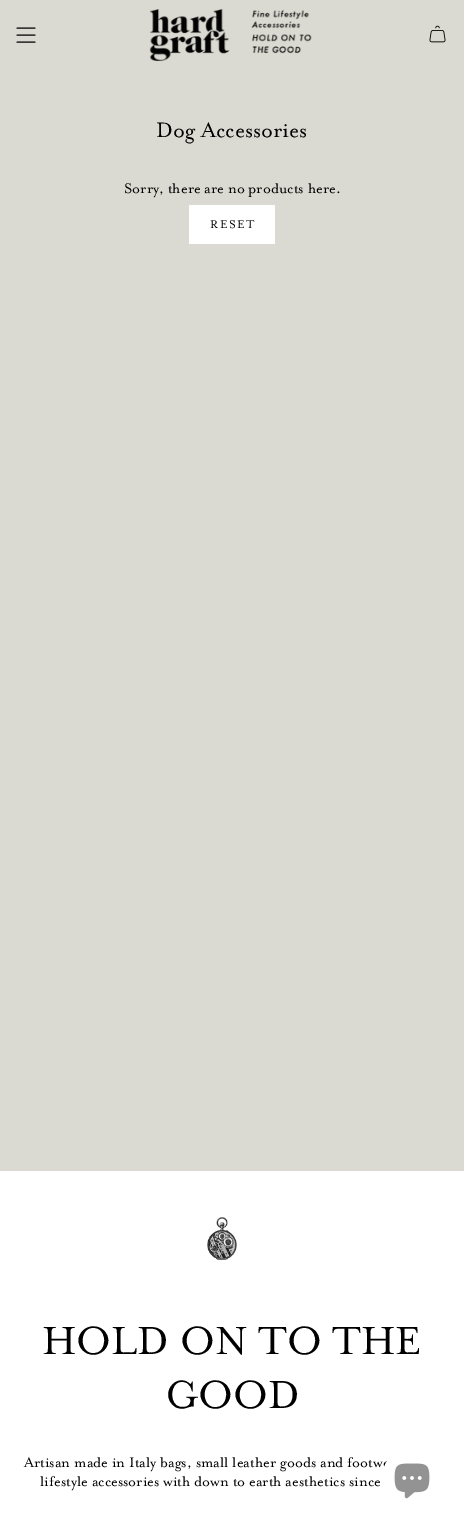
%!PS-Adobe-3.0
%%BoundingBox: 0 0 464 1529
%%LanguageLevel: 3
%%Pages: 1
%%EndComments
%%BeginProlog
/setink { 3 { 255 div 3 1 roll } repeat setrgbcolor } def
/usefont { [ exch dup neg 0 0 3 -1 roll 0 0 ] selectfont } def
/drawtext { setink usefont moveto show } def
/fillbox { setink rectfill } def
/disc { newpath 0 360 arc closepath } def
/drawimage { 5 dict begin { /h /w /y /x /name } { exch def } forall
  gsave x y translate w h scale
  w h 8 [w 0 0 h 0 0] name (r) file false 3 colorimage grestore end } def
%%EndProlog
%%BeginSetup
<< /PageSize [464 1529] >> setpagedevice
%%EndSetup
%%Page: 1 1
0 1529 translate 1 -1 scale
4 setmiterlimit
0 0 464 1529 218 218 210 fillbox
0 0 0 setink
1 setlinecap
1 setlinejoin
17 28 moveto 35 28 lineto 17 35 moveto 35 35 lineto 17 42 moveto 35 42 lineto stroke
(assets/img1.rgb) 149 9 163 53 drawimage
(assets/img2.rgb) 429 25 17 18 drawimage
(Dog Accessories) 156 137 /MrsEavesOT-Regular 24 0 0 0 drawtext
(Sorry, there are no products here.) 124 193 /MrsEavesOT-Regular 16 0 0 0 drawtext
189 205 86 39 255 255 255 fillbox
/MrsEavesOT-Regular 13 usefont
0 0 0 setink
210 228 moveto 1.5 0 (RESET) ashow
0 1171 464 358 255 255 255 fillbox
(assets/img3.rgb) 207 1217 30 43 drawimage
(HOLD ON TO THE) 42 1354 /MrsEavesOT-Regular 45 0 0 0 drawtext
(GOOD) 165 1408 /MrsEavesOT-Regular 45 0 0 0 drawtext
(Artisan made in Italy bags, small leather goods and footwe) 24 1467 /MrsEavesOT-Regular 16 0 0 0 drawtext
(lifestyle accessories with down to earth aesthetics since) 40 1486 /MrsEavesOT-Regular 16 0 0 0 drawtext
255 255 255 setink
412 1478 30 disc fill
(assets/img4.rgb) 394 1463 36 36 drawimage
showpage
%%EOF
